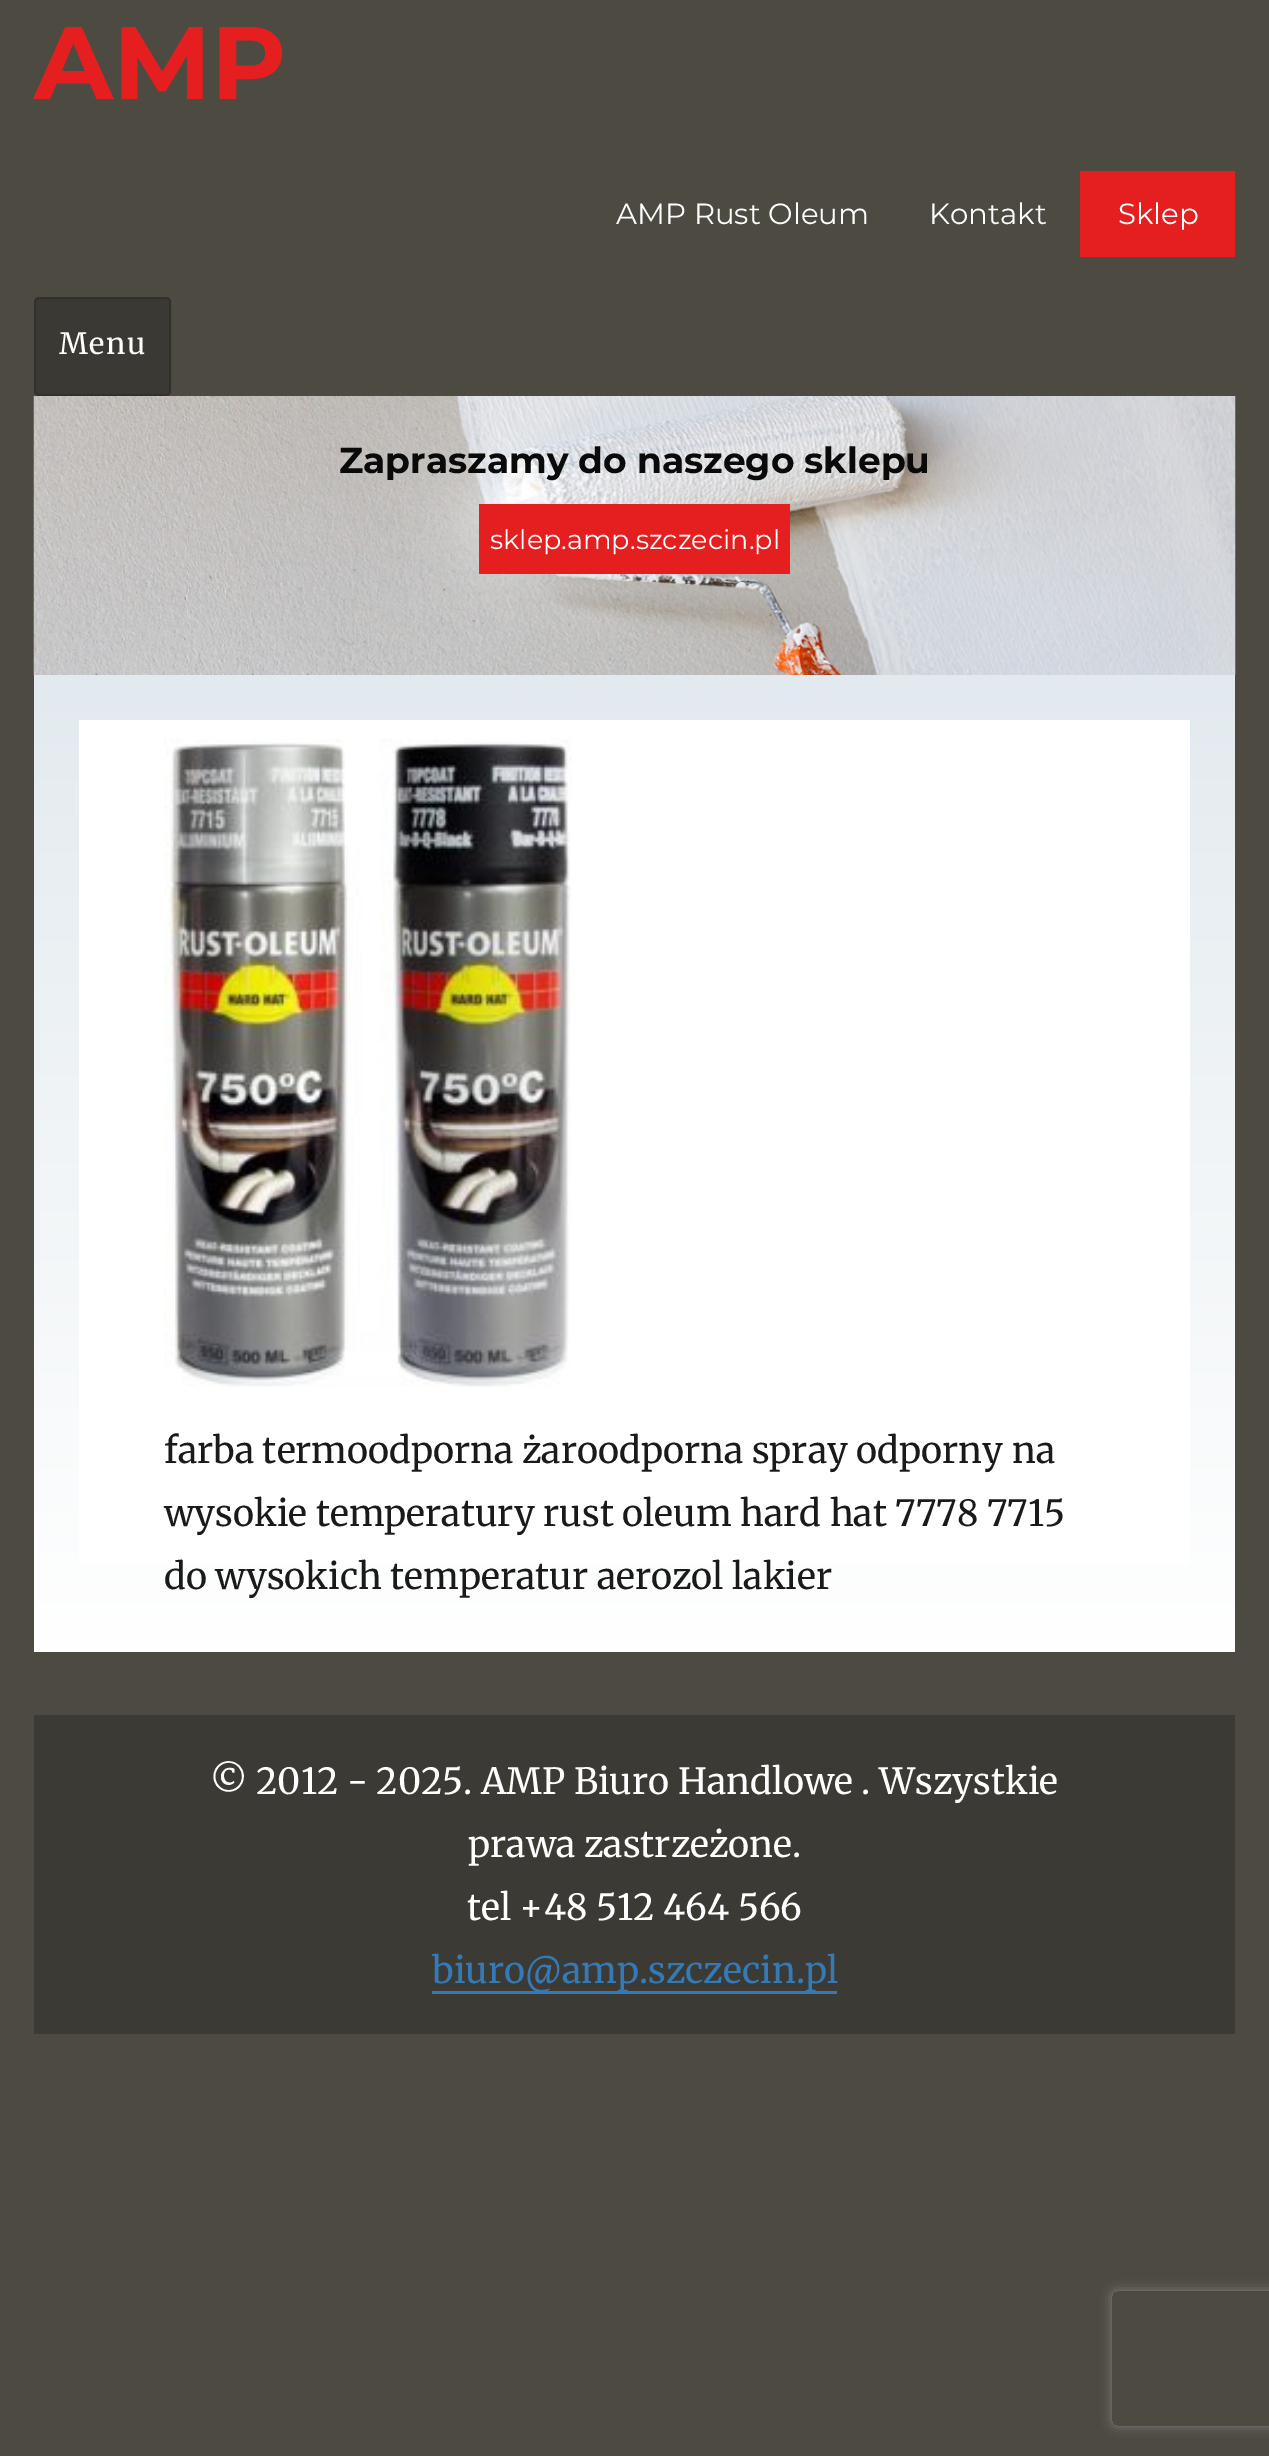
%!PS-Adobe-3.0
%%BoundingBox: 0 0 1269 2456
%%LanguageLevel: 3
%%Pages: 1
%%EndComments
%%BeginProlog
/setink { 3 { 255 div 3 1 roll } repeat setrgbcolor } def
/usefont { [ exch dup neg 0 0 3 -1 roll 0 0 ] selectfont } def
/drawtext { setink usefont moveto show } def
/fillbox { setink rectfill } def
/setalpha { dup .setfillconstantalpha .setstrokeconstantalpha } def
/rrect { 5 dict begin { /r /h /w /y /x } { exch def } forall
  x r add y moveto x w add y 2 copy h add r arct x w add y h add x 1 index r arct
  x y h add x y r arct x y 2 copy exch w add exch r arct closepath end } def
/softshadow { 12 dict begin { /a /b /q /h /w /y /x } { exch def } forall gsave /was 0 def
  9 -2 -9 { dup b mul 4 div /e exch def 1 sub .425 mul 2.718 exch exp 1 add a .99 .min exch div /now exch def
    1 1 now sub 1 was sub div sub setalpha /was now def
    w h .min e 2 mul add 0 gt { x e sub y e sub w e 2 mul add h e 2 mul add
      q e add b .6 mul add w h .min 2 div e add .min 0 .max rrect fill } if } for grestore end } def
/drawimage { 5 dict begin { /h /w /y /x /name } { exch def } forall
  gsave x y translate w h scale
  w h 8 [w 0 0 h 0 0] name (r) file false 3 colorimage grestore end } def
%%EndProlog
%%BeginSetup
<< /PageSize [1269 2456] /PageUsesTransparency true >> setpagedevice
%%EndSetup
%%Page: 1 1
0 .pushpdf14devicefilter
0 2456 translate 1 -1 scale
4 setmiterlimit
0 0 1269 2456 77 74 66 fillbox
(AMP) 34 99 /Montserrat-Bold 103 229 31 31 drawtext
(AMP Rust Oleum) 616 224 /Montserrat-Regular 29.25 255 255 255 drawtext
(Kontakt) 929 224 /Montserrat-Regular 29.25 255 255 255 drawtext
1080 171 155 86 229 31 31 fillbox
(Sklep) 1118 224 /Montserrat-Regular 29.25 255 255 255 drawtext
59 57 51 setink
34 297 137 99 5 rrect fill
0.2 setalpha
10 10 10 setink
2 setlinewidth
35 298 135 97 4 rrect stroke
/Merriweather-Regular 29.25 usefont
1 setalpha
255 255 255 setink
59 354 moveto 1.5 0 (Menu) ashow
(assets/img1.rgb) 33 396 1203 279 drawimage
(Zapraszamy do naszego sklepu) 339 473 /Montserrat-Bold 36 10 10 10 drawtext
479 504 311 70 229 31 31 fillbox
(sklep.amp.szczecin.pl) 490 549 /Montserrat-Regular 27 255 255 255 drawtext
gsave 34 675 moveto 1235 675 lineto 1235 1652 lineto 34 1652 lineto closepath clip newpath
<< /ShadingType 2 /ColorSpace /DeviceRGB /Coords [635 675 635 1652] /Extend [true true] /Function << /FunctionType 2 /Domain [0 1] /C0 [0.89 0.918 0.937] /C1 [1 1 1] /N 1 >> >> shfill grestore
79 720 1111 845 255 255 255 fillbox
(assets/img2.rgb) 164 738 408 649 drawimage
(farba termoodporna żaroodporna spray odporny na) 164 1463 /Merriweather-Regular 36 26 26 26 drawtext
(wysokie temperatury rust oleum hard hat 7778 7715) 164 1526 /Merriweather-Regular 36 26 26 26 drawtext
(do wysokich temperatur aerozol lakier) 164 1589 /Merriweather-Regular 36 26 26 26 drawtext
34 1715 1201 319 60 58 52 fillbox
(© 2012 - 2025. AMP Biuro Handlowe . Wszystkie) 210 1794 /Merriweather-Regular 36 255 255 255 drawtext
(prawa zastrzeżone.) 468 1857 /Merriweather-Regular 36 255 255 255 drawtext
(tel +48 512 464 566) 467 1920 /Merriweather-Regular 36 255 255 255 drawtext
432 1991 405 3 51 122 183 fillbox
(biuro@amp.szczecin.pl) 432 1983 /Merriweather-Regular 36 51 122 183 drawtext
gsave
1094 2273 moveto 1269 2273 lineto 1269 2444 lineto 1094 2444 lineto closepath 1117 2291 moveto 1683 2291 lineto 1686 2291 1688 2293 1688 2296 curveto 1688 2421 lineto 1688 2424 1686 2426 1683 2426 curveto 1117 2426 lineto 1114 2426 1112 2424 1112 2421 curveto 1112 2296 lineto 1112 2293 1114 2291 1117 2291 curveto closepath eoclip newpath
128 128 128 setink
1112 2291 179 135 5 5.5 1 softshadow
grestore
.poppdf14devicefilter showpage
%%EOF
